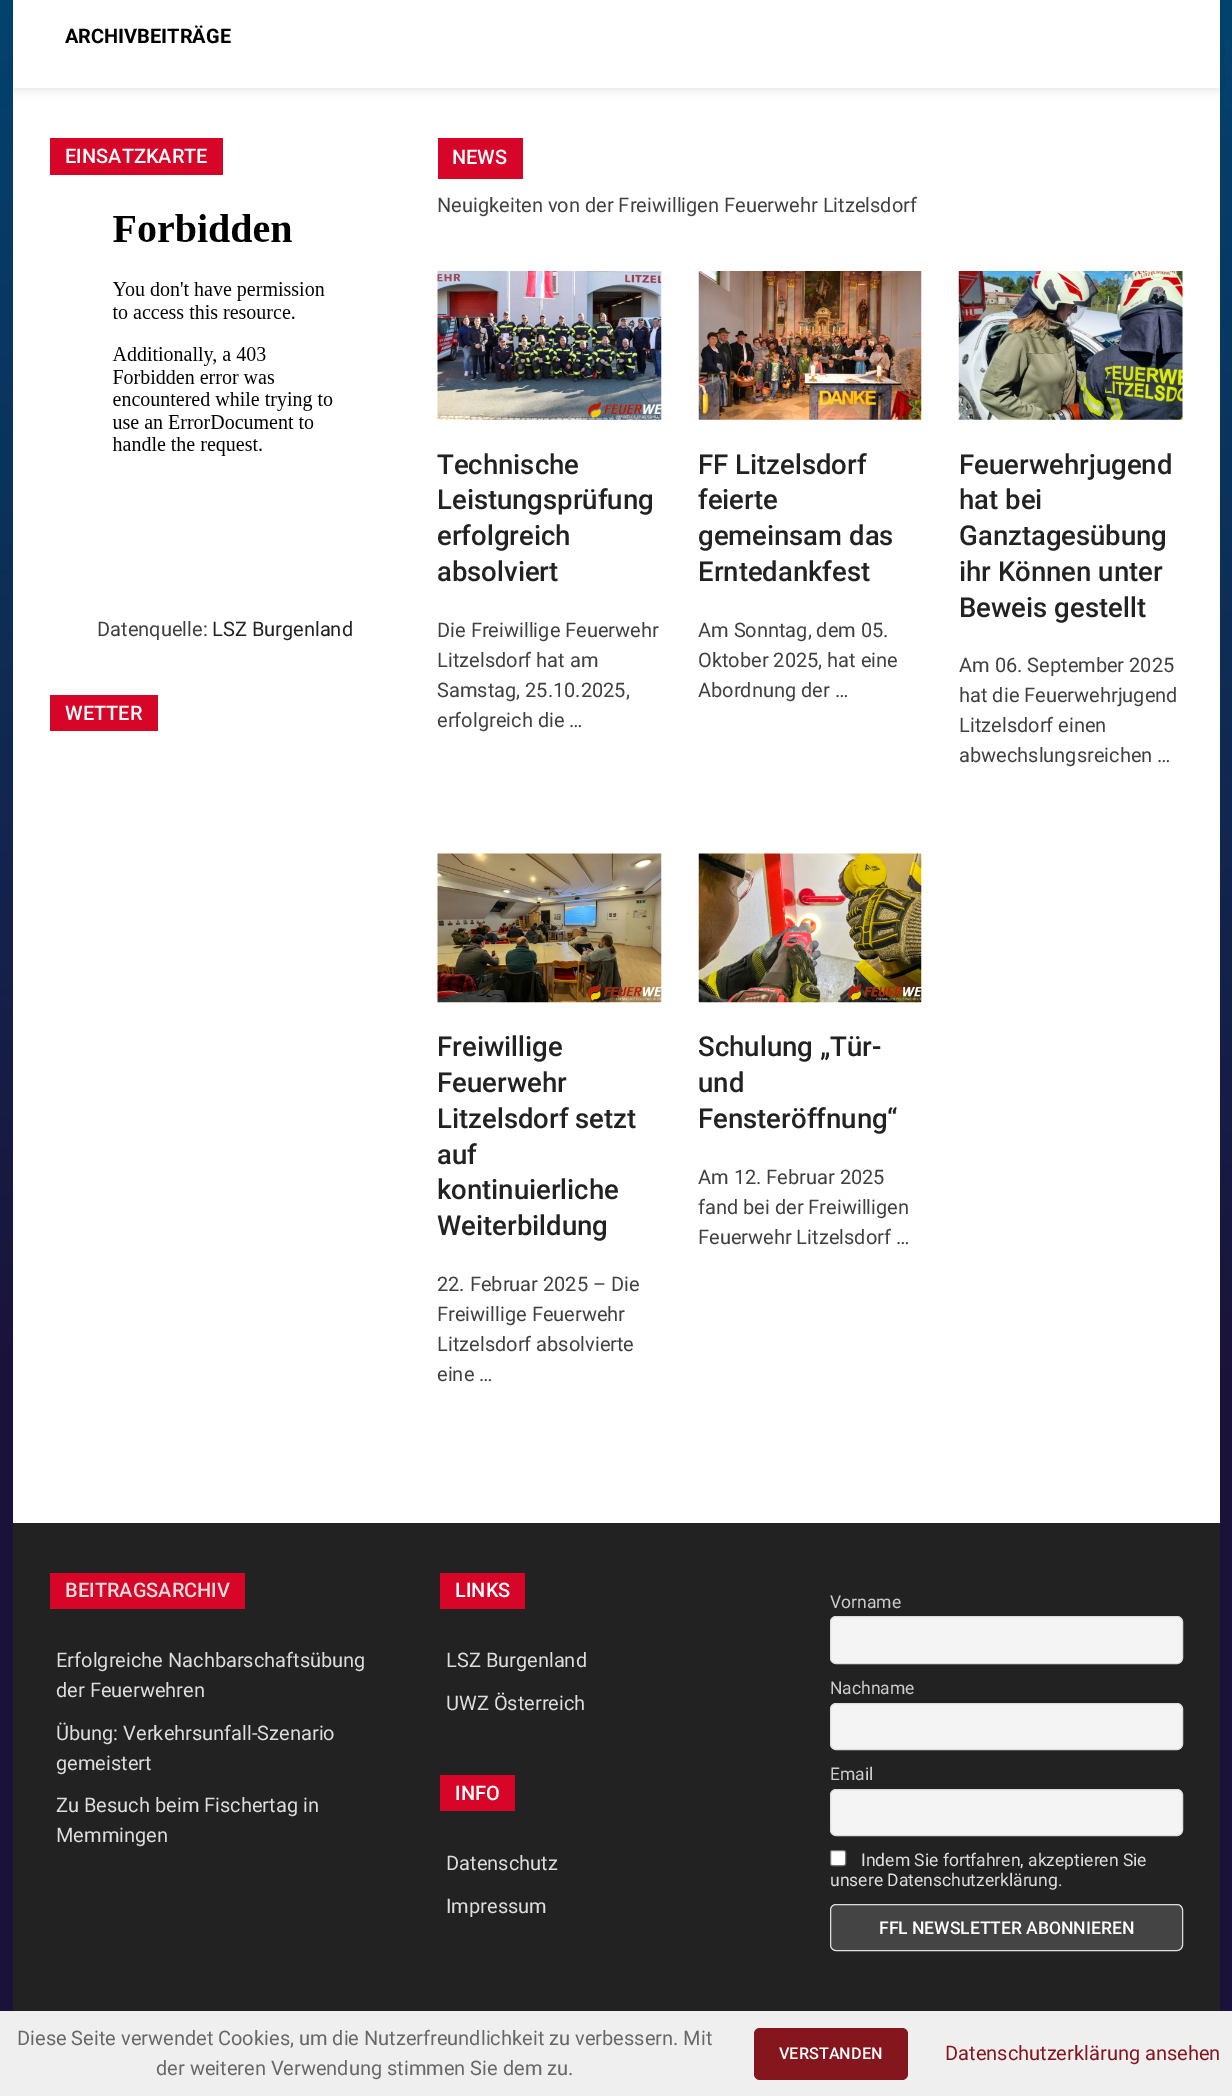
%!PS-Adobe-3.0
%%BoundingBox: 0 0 1232 2096
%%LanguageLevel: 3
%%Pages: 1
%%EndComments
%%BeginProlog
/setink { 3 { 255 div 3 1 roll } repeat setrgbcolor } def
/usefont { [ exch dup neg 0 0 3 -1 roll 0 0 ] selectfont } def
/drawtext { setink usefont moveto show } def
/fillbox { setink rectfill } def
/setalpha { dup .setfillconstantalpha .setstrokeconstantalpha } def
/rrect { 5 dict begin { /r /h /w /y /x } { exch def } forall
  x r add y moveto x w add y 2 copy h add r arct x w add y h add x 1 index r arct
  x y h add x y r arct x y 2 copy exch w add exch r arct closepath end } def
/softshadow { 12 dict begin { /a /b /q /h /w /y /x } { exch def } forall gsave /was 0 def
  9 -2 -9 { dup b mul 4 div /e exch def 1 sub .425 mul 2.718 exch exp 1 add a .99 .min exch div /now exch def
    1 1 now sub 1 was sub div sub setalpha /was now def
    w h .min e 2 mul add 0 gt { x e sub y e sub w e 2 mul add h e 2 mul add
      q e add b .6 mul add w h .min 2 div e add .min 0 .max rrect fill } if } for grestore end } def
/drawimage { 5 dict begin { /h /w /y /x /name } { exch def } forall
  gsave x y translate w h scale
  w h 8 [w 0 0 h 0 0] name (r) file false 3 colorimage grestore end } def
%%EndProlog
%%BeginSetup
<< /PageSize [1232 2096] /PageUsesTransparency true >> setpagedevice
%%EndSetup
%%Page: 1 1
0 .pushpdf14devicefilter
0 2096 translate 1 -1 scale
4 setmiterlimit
0 0 1232 2096 255 255 255 fillbox
(assets/img1.rgb) 0 0 1232 2011 drawimage
13 0 1207 1523 255 255 255 fillbox
gsave
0 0 moveto 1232 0 lineto 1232 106 lineto 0 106 lineto closepath 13 -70 moveto 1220 -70 lineto 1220 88 lineto 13 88 lineto closepath eoclip newpath
0 0 0 setink
13 -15 1207 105 0 5 0.1 softshadow
grestore
(ARCHIVBEITRÄGE) 65 43 /Roboto-Bold 20 0 0 0 drawtext
50 138 173 37 215 6 40 fillbox
(EINSATZKARTE) 65 163 /Roboto-Medium 20 255 255 255 drawtext
(assets/img2.rgb) 112 214 221 242 drawimage
(Datenquelle:) 97 636 /Roboto-Regular 20 64 64 64 drawtext
(LSZ Burgenland) 212 636 /Roboto-Regular 20 34 34 34 drawtext
50 695 108 36 215 6 40 fillbox
(WETTER) 65 720 /Roboto-Medium 20 255 255 255 drawtext
438 138 85 41 215 6 40 fillbox
(NEWS) 452 164 /Roboto-Medium 20 255 255 255 drawtext
(Neuigkeiten von der Freiwilligen Feuerwehr Litzelsdorf) 437 212 /Roboto-Regular 20 64 64 64 drawtext
(assets/img3.rgb) 437 271 225 149 drawimage
(Technische) 437 474 /Roboto-Medium 27.5 34 34 34 drawtext
(Leistungsprüfung) 437 509 /Roboto-Medium 27.5 34 34 34 drawtext
(erfolgreich) 437 545 /Roboto-Medium 27.5 34 34 34 drawtext
(absolviert) 437 581 /Roboto-Medium 27.5 34 34 34 drawtext
(Die Freiwillige Feuerwehr) 437 637 /Roboto-Regular 20 64 64 64 drawtext
(Litzelsdorf hat am) 437 667 /Roboto-Regular 20 64 64 64 drawtext
(Samstag, 25.10.2025,) 437 697 /Roboto-Regular 20 64 64 64 drawtext
(erfolgreich die …) 437 727 /Roboto-Regular 20 64 64 64 drawtext
(assets/img4.rgb) 698 271 224 149 drawimage
(FF Litzelsdorf) 698 474 /Roboto-Medium 27.5 34 34 34 drawtext
(feierte) 698 509 /Roboto-Medium 27.5 34 34 34 drawtext
(gemeinsam das) 698 545 /Roboto-Medium 27.5 34 34 34 drawtext
(Erntedankfest) 698 581 /Roboto-Medium 27.5 34 34 34 drawtext
(Am Sonntag, dem 05.) 698 637 /Roboto-Regular 20 64 64 64 drawtext
(Oktober 2025, hat eine) 698 667 /Roboto-Regular 20 64 64 64 drawtext
(Abordnung der …) 698 697 /Roboto-Regular 20 64 64 64 drawtext
(assets/img5.rgb) 958 271 225 149 drawimage
(Feuerwehrjugend) 959 474 /Roboto-Medium 27.5 34 34 34 drawtext
(hat bei) 959 509 /Roboto-Medium 27.5 34 34 34 drawtext
(Ganztagesübung) 959 545 /Roboto-Medium 27.5 34 34 34 drawtext
(ihr Können unter) 959 581 /Roboto-Medium 27.5 34 34 34 drawtext
(Beweis gestellt) 959 617 /Roboto-Medium 27.5 34 34 34 drawtext
(Am 06. September 2025) 959 672 /Roboto-Regular 20 64 64 64 drawtext
(hat die Feuerwehrjugend) 959 702 /Roboto-Regular 20 64 64 64 drawtext
(Litzelsdorf einen) 959 732 /Roboto-Regular 20 64 64 64 drawtext
(abwechslungsreichen …) 959 762 /Roboto-Regular 20 64 64 64 drawtext
(assets/img6.rgb) 437 853 225 150 drawimage
(Freiwillige) 437 1056 /Roboto-Medium 27.5 34 34 34 drawtext
(Feuerwehr) 437 1092 /Roboto-Medium 27.5 34 34 34 drawtext
(Litzelsdorf setzt) 437 1128 /Roboto-Medium 27.5 34 34 34 drawtext
(auf) 437 1164 /Roboto-Medium 27.5 34 34 34 drawtext
(kontinuierliche) 437 1199 /Roboto-Medium 27.5 34 34 34 drawtext
(Weiterbildung) 437 1235 /Roboto-Medium 27.5 34 34 34 drawtext
(22. Februar 2025 – Die) 437 1291 /Roboto-Regular 20 64 64 64 drawtext
(Freiwillige Feuerwehr) 437 1321 /Roboto-Regular 20 64 64 64 drawtext
(Litzelsdorf absolvierte) 437 1351 /Roboto-Regular 20 64 64 64 drawtext
(eine …) 437 1381 /Roboto-Regular 20 64 64 64 drawtext
(assets/img7.rgb) 698 853 224 150 drawimage
(Schulung „Tür-) 698 1056 /Roboto-Medium 27.5 34 34 34 drawtext
(und) 698 1092 /Roboto-Medium 27.5 34 34 34 drawtext
(Fensteröffnung“) 698 1128 /Roboto-Medium 27.5 34 34 34 drawtext
(Am 12. Februar 2025) 698 1184 /Roboto-Regular 20 64 64 64 drawtext
(fand bei der Freiwilligen) 698 1214 /Roboto-Regular 20 64 64 64 drawtext
(Feuerwehr Litzelsdorf …) 698 1244 /Roboto-Regular 20 64 64 64 drawtext
13 1523 1207 488 34 34 34 fillbox
50 1573 195 36 215 6 40 fillbox
(BEITRAGSARCHIV) 65 1597 /Roboto-Medium 20 221 221 221 drawtext
(Erfolgreiche Nachbarschaftsübung) 56 1667 /Roboto-Regular 20 221 221 221 drawtext
(der Feuerwehren) 56 1697 /Roboto-Regular 20 221 221 221 drawtext
(Übung: Verkehrsunfall-Szenario) 56 1740 /Roboto-Regular 20 221 221 221 drawtext
(gemeistert) 56 1770 /Roboto-Regular 20 221 221 221 drawtext
(Zu Besuch beim Fischertag in) 56 1812 /Roboto-Regular 20 221 221 221 drawtext
(Memmingen) 56 1842 /Roboto-Regular 20 221 221 221 drawtext
440 1573 85 36 215 6 40 fillbox
(LINKS) 455 1597 /Roboto-Medium 20 255 255 255 drawtext
(LSZ Burgenland) 446 1667 /Roboto-Regular 20 221 221 221 drawtext
(UWZ Österreich) 446 1710 /Roboto-Regular 20 221 221 221 drawtext
440 1775 75 36 215 6 40 fillbox
(INFO) 455 1800 /Roboto-Medium 20 255 255 255 drawtext
(Datenschutz) 446 1870 /Roboto-Regular 20 221 221 221 drawtext
(Impressum) 446 1913 /Roboto-Regular 20 221 221 221 drawtext
(Vorname) 830 1608 /Roboto-Regular 17.5 204 204 204 drawtext
244 244 244 setink
830.5 1616.5 352 47 5.5 rrect gsave fill grestore
221 221 221 setink
stroke
(Nachname) 830 1694 /Roboto-Regular 17.5 204 204 204 drawtext
244 244 244 setink
830.5 1703.5 352 46 5.5 rrect gsave fill grestore
221 221 221 setink
stroke
(Email) 830 1780 /Roboto-Regular 17.5 204 204 204 drawtext
244 244 244 setink
830.5 1789.5 352 46 5.5 rrect gsave fill grestore
221 221 221 setink
stroke
255 255 255 setink
830.5 1850.5 15 15 2 rrect gsave fill grestore
118 118 118 setink
stroke
(Indem Sie fortfahren, akzeptieren Sie) 861 1866 /Roboto-Regular 17.5 221 221 221 drawtext
(unsere Datenschutzerklärung.) 830 1886 /Roboto-Regular 17.5 221 221 221 drawtext
68 68 68 setink
830.5 1904.5 352 46 5.5 rrect gsave fill grestore
221 221 221 setink
stroke
(FFL NEWSLETTER ABONNIEREN) 879 1934 /Roboto-Medium 17.5 255 255 255 drawtext
0 2011 1232 85 239 239 239 fillbox
(Diese Seite verwendet Cookies, um die Nutzerfreundlichkeit zu verbessern. Mit) 17 2045 /Roboto-Regular 20 104 104 104 drawtext
(der weiteren Verwendung stimmen Sie dem zu.) 156 2075 /Roboto-Regular 20 104 104 104 drawtext
133 22 29 setink
754 2028 154 52 6 rrect fill
(VERSTANDEN) 779 2059 /Roboto-Medium 16.25 255 255 255 drawtext
(Datenschutzerklärung ansehen) 945 2060 /Roboto-Regular 20 133 22 29 drawtext
.poppdf14devicefilter showpage
%%EOF
